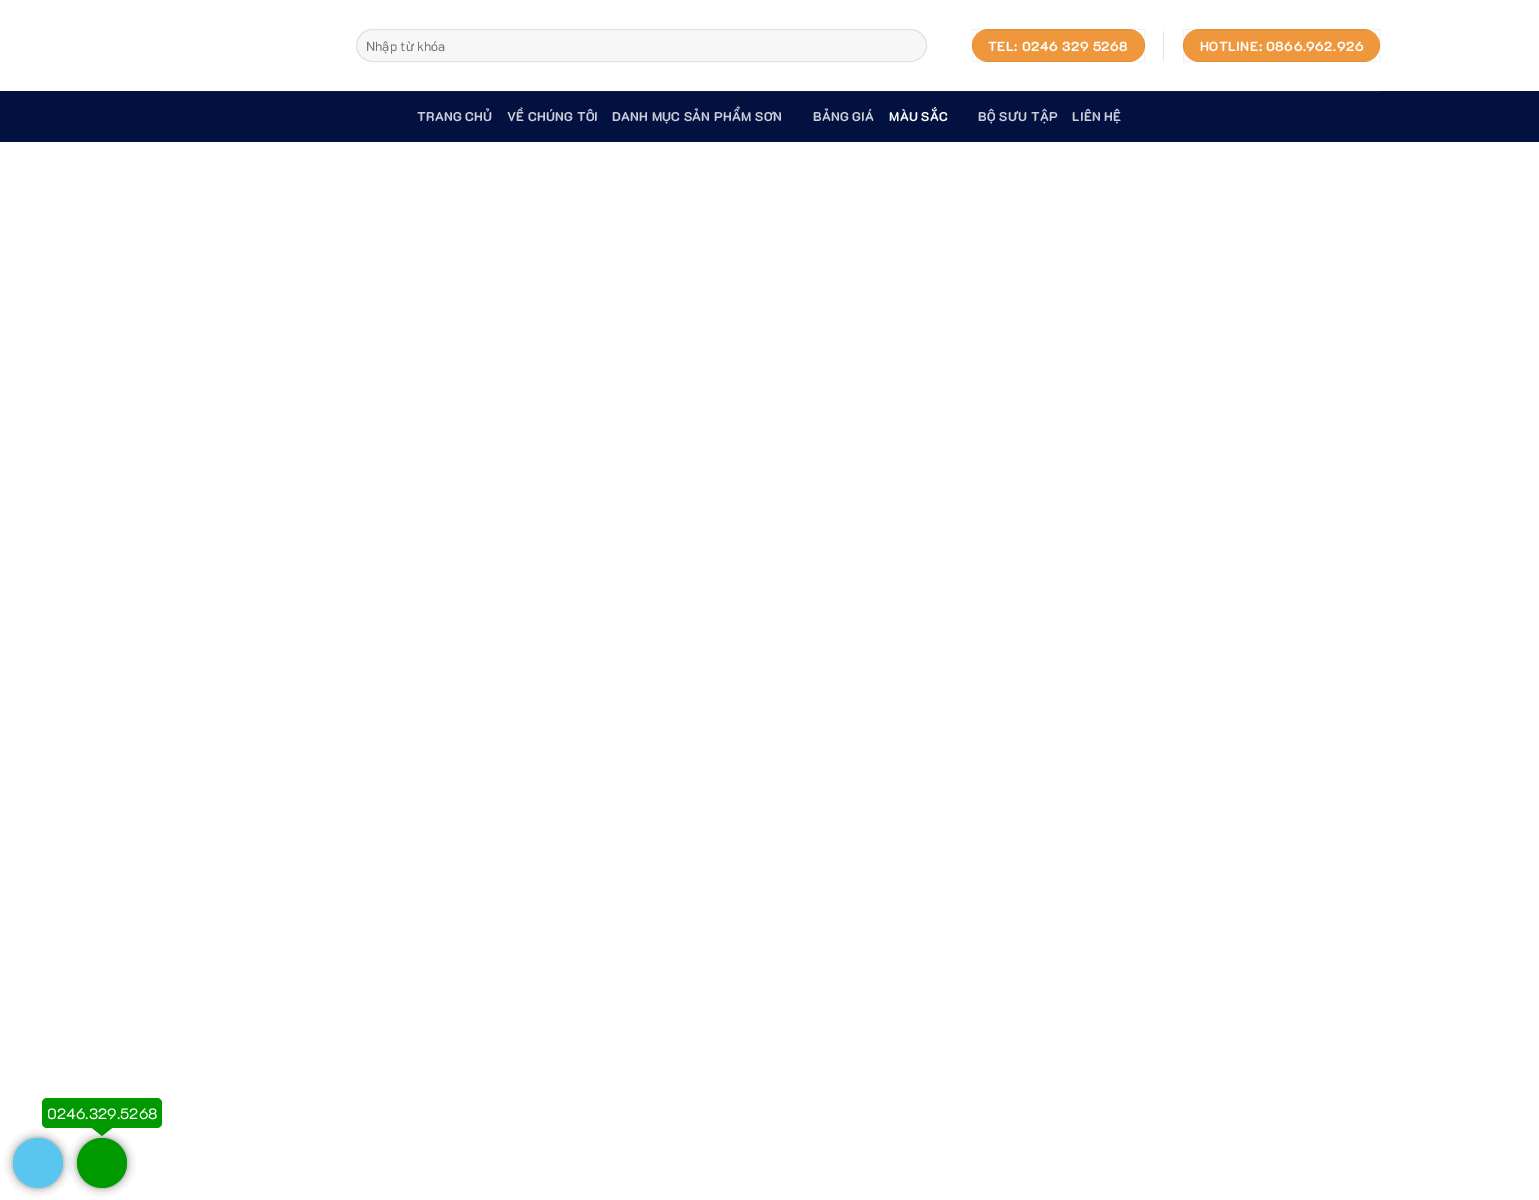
%!PS-Adobe-3.0
%%BoundingBox: 0 0 1539 1200
%%LanguageLevel: 3
%%Pages: 1
%%EndComments
%%BeginProlog
/setink { 3 { 255 div 3 1 roll } repeat setrgbcolor } def
/usefont { [ exch dup neg 0 0 3 -1 roll 0 0 ] selectfont } def
/drawtext { setink usefont moveto show } def
/fillbox { setink rectfill } def
/setalpha { dup .setfillconstantalpha .setstrokeconstantalpha } def
/disc { newpath 0 360 arc closepath } def
/rrect { 5 dict begin { /r /h /w /y /x } { exch def } forall
  x r add y moveto x w add y 2 copy h add r arct x w add y h add x 1 index r arct
  x y h add x y r arct x y 2 copy exch w add exch r arct closepath end } def
/softshadow { 12 dict begin { /a /b /q /h /w /y /x } { exch def } forall gsave /was 0 def
  9 -2 -9 { dup b mul 4 div /e exch def 1 sub .425 mul 2.718 exch exp 1 add a .99 .min exch div /now exch def
    1 1 now sub 1 was sub div sub setalpha /was now def
    w h .min e 2 mul add 0 gt { x e sub y e sub w e 2 mul add h e 2 mul add
      q e add b .6 mul add w h .min 2 div e add .min 0 .max rrect fill } if } for grestore end } def
%%EndProlog
%%BeginSetup
<< /PageSize [1539 1200] /PageUsesTransparency true >> setpagedevice
%%EndSetup
%%Page: 1 1
0 .pushpdf14devicefilter
0 1200 translate 1 -1 scale
4 setmiterlimit
0 0 1539 1200 255 255 255 fillbox
247 247 247 setink
356 29 571 33 16.5 rrect fill
0.09 setalpha
0 0 0 setink
356.5 29.5 570 32 16 rrect stroke
1 setalpha
(Nhập từ khóa) 366 51 /K2D-Regular 13.25 117 117 117 drawtext
238 151 60 setink
972 29 173 33 16.5 rrect fill
0.05 setalpha
0 0 0 setink
972.5 29.5 172 32 rectstroke
/K2D-Bold 13.25 usefont
1 setalpha
255 255 255 setink
988 51 moveto 0.4 0 (TEL: 0246 329 5268) ashow
1163 31 1 30 230 230 230 fillbox
238 151 60 setink
1183 29 197 33 16.5 rrect fill
0.05 setalpha
0 0 0 setink
1183.5 29.5 196 32 rectstroke
1 setalpha
255 255 255 setink
1200 51 moveto 0.4 0 (HOTLINE: 0866.962.926) ashow
0 91 1539 51 2 17 64 fillbox
160 91 1220 1 14 27 70 fillbox
/K2D-Bold 12.75 usefont
204 207 217 setink
417 121 moveto 0.25 0 (TRANG CHỦ) ashow
507 121 moveto 0.25 0 (VỀ CHÚNG TÔI) ashow
612 121 moveto 0.25 0 (DANH MỤC SẢN PHẨM SƠN) ashow
813 121 moveto 0.25 0 (BẢNG GIÁ) ashow
255 255 255 setink
889 121 moveto 0.25 0 (MÀU SẮC) ashow
204 207 217 setink
978 121 moveto 0.25 0 (BỘ SƯU TẬP) ashow
1072 121 moveto 0.25 0 (LIÊN HỆ) ashow
0 0 0 setink
79 1140 46 46 23 5 0.7 softshadow
15 1140 46 46 23 5 0.7 softshadow
0 153 0 setink
42 1098 120 30 5 rrect fill
(0246.329.5268) 47 1119 /K2D-Regular 15 255 255 255 drawtext
0 153 0 setink
92 1128 moveto 112 1128 lineto 102 1136 lineto closepath fill
102 1163 25 disc fill
90 197 239 setink
38 1163 25 disc fill
.poppdf14devicefilter showpage
%%EOF
